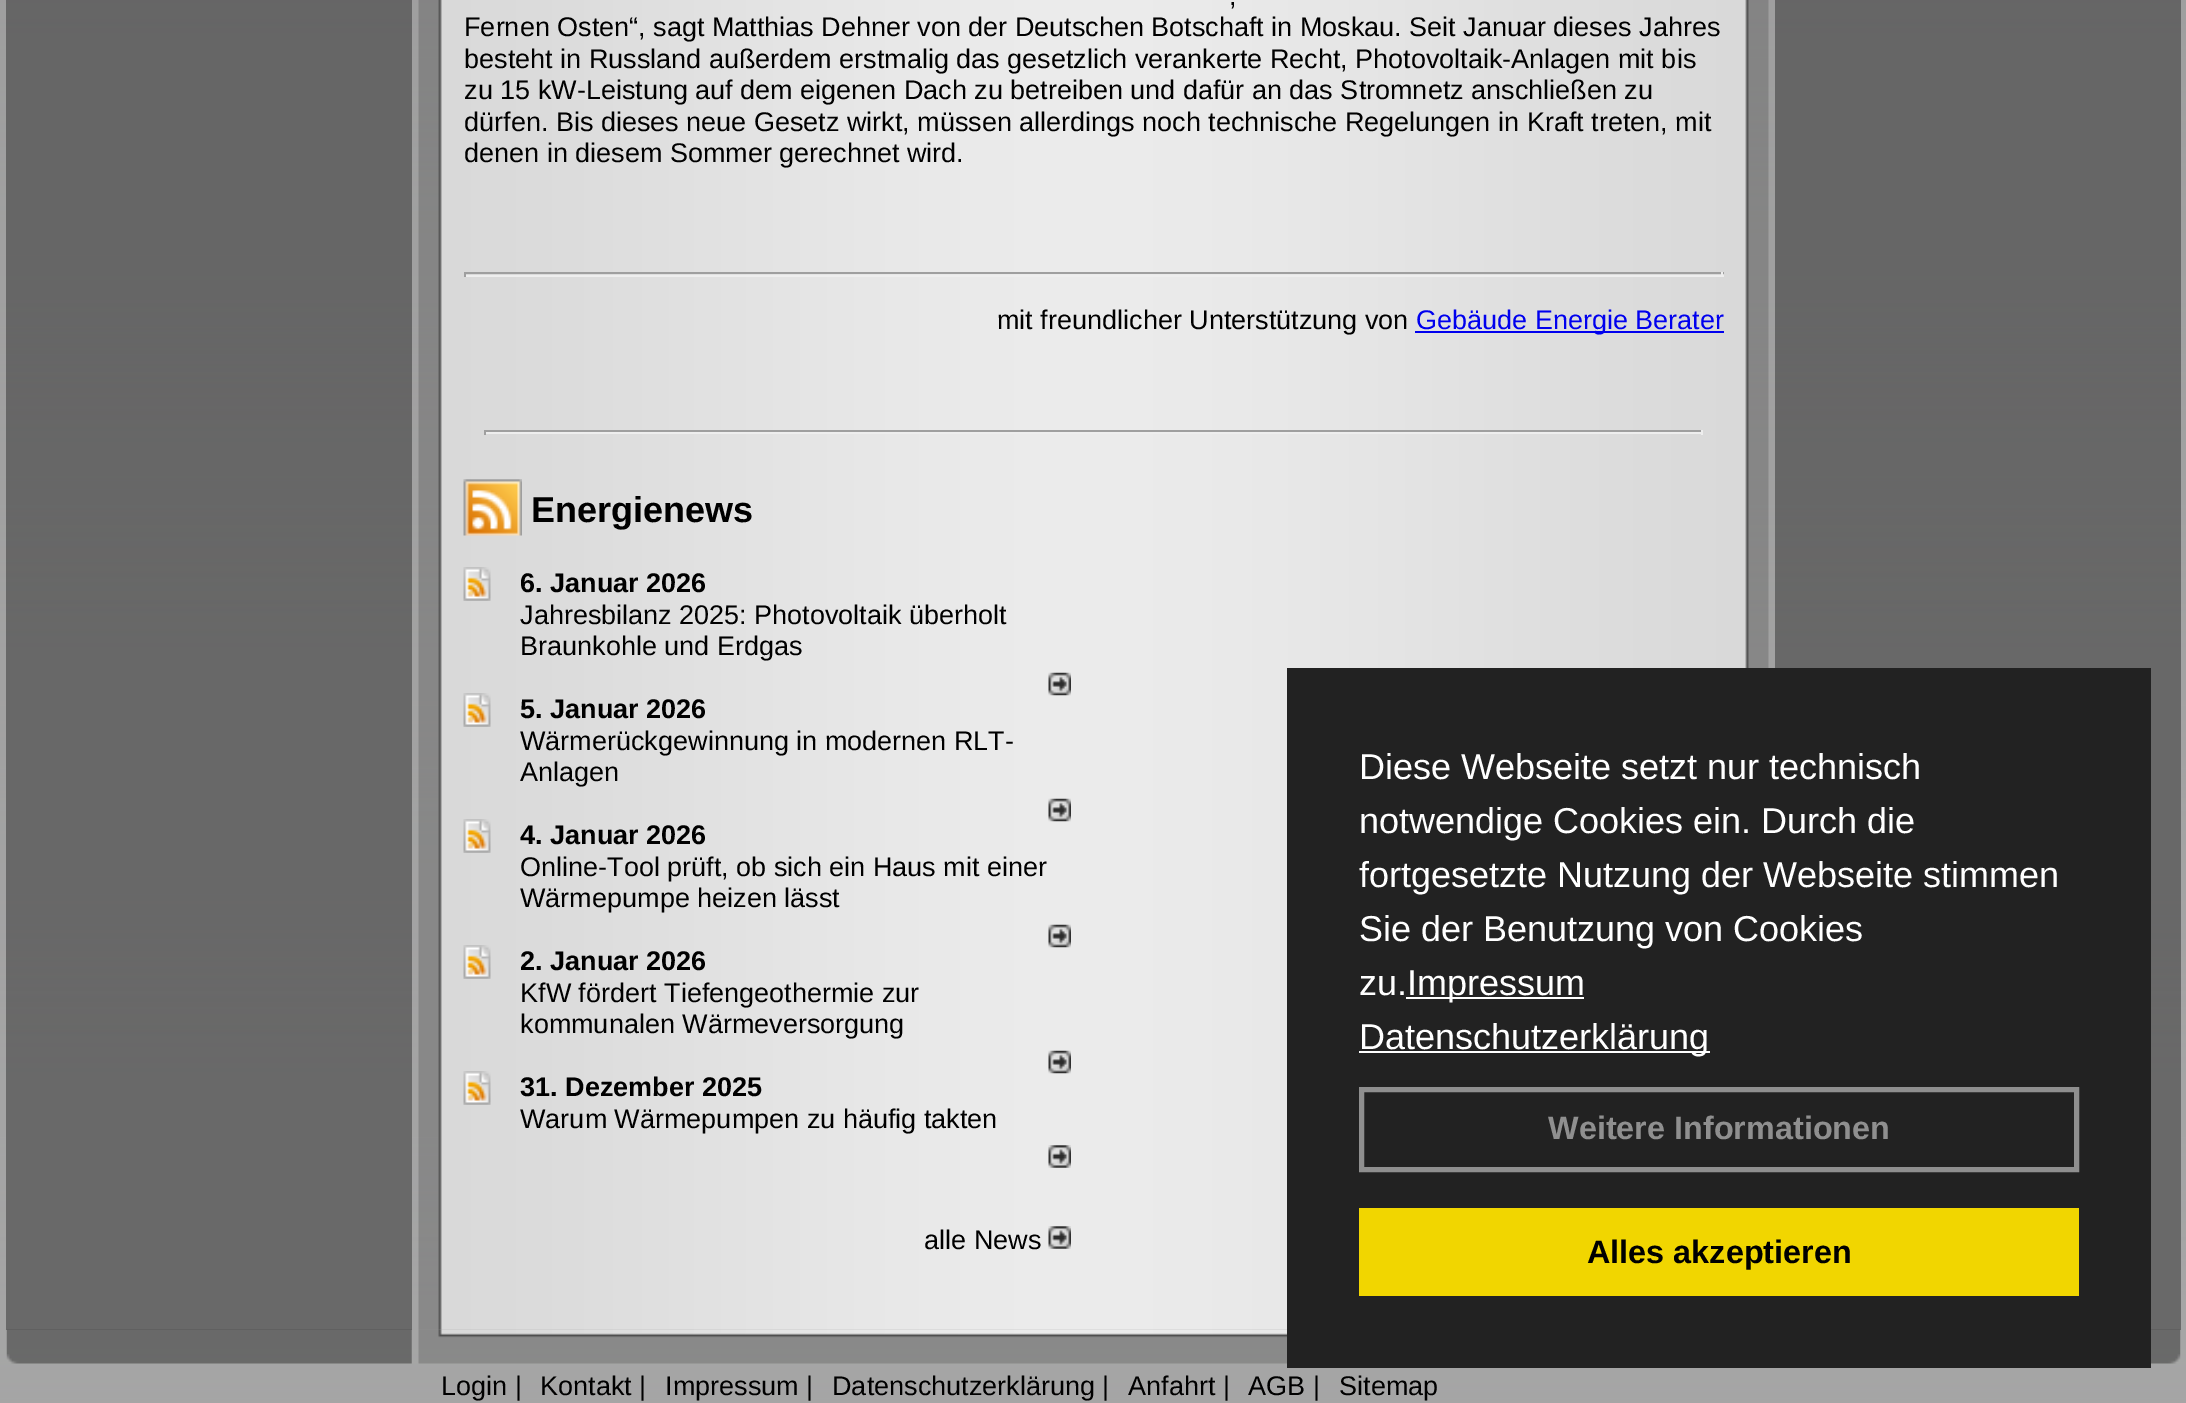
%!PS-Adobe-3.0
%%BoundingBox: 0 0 2186 1403
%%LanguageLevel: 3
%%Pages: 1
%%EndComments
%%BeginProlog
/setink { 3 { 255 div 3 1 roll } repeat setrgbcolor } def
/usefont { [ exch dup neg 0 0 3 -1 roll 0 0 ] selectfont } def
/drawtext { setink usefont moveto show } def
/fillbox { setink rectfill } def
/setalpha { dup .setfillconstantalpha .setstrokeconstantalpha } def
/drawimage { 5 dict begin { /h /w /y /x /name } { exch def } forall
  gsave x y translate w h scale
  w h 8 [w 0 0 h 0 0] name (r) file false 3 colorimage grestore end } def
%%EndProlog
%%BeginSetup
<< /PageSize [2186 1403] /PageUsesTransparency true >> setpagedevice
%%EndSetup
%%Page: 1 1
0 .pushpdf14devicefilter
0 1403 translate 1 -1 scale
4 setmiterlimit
0 0 2186 1403 255 255 255 fillbox
(assets/img1.rgb) 0 0 2186 1403 drawimage
0.36 setalpha
6 0 406 1330 0 0 0 fillbox
1 setalpha
(assets/img2.rgb) 418 0 1351 1330 drawimage
(,) 1229 5 /LiberationSans-Regular 27 0 0 0 drawtext
(Fernen Osten“, sagt Matthias Dehner von der Deutschen Botschaft in Moskau. Seit Januar dieses Jahres) 464 36 /LiberationSans-Regular 27 0 0 0 drawtext
(besteht in Russland außerdem erstmalig das gesetzlich verankerte Recht, Photovoltaik-Anlagen mit bis) 464 68 /LiberationSans-Regular 27 0 0 0 drawtext
(zu 15 kW-Leistung auf dem eigenen Dach zu betreiben und dafür an das Stromnetz anschließen zu) 464 99 /LiberationSans-Regular 27 0 0 0 drawtext
(dürfen. Bis dieses neue Gesetz wirkt, müssen allerdings noch technische Regelungen in Kraft treten, mit) 464 131 /LiberationSans-Regular 27 0 0 0 drawtext
(denen in diesem Sommer gerechnet wird.) 464 162 /LiberationSans-Regular 27 0 0 0 drawtext
464 272 1260 2 159 159 159 fillbox
1721 272 2 5 238 238 238 fillbox
464 275 1260 2 238 238 238 fillbox
464 272 2 5 159 159 159 fillbox
(mit freundlicher Unterstützung von) 997 329 /LiberationSans-Regular 27 0 0 0 drawtext
1415 331 309 2 0 0 238 fillbox
(Gebäude Energie Berater) 1416 329 /LiberationSans-Regular 27 0 0 238 drawtext
484 430 1219 2 159 159 159 fillbox
1701 430 2 5 238 238 238 fillbox
484 432 1219 2 238 238 238 fillbox
484 430 2 5 159 159 159 fillbox
(assets/img3.rgb) 463 479 59 57 drawimage
(Energienews) 531 522 /LiberationSans-Bold 36 0 0 0 drawtext
(assets/img4.rgb) 463 567 28 34 drawimage
(6. Januar 2026) 520 592 /LiberationSans-Bold 27 0 0 0 drawtext
(Jahresbilanz 2025: Photovoltaik überholt) 520 624 /LiberationSans-Regular 27 0 0 0 drawtext
(Braunkohle und Erdgas) 520 655 /LiberationSans-Regular 27 0 0 0 drawtext
(assets/img5.rgb) 1048 672 23 24 drawimage
(assets/img6.rgb) 463 693 28 34 drawimage
(5. Januar 2026) 520 718 /LiberationSans-Bold 27 0 0 0 drawtext
(Wärmerückgewinnung in modernen RLT-) 520 750 /LiberationSans-Regular 27 0 0 0 drawtext
(Anlagen) 520 781 /LiberationSans-Regular 27 0 0 0 drawtext
(assets/img5.rgb) 1048 798 23 24 drawimage
(assets/img6.rgb) 463 819 28 34 drawimage
(4. Januar 2026) 520 844 /LiberationSans-Bold 27 0 0 0 drawtext
(Online-Tool prüft, ob sich ein Haus mit einer) 520 876 /LiberationSans-Regular 27 0 0 0 drawtext
(Wärmepumpe heizen lässt) 520 907 /LiberationSans-Regular 27 0 0 0 drawtext
(assets/img5.rgb) 1048 924 23 24 drawimage
(assets/img7.rgb) 463 945 28 34 drawimage
(2. Januar 2026) 520 970 /LiberationSans-Bold 27 0 0 0 drawtext
(KfW fördert Tiefengeothermie zur) 520 1002 /LiberationSans-Regular 27 0 0 0 drawtext
(kommunalen Wärmeversorgung) 520 1033 /LiberationSans-Regular 27 0 0 0 drawtext
(assets/img5.rgb) 1048 1050 23 24 drawimage
(assets/img6.rgb) 463 1071 28 34 drawimage
(31. Dezember 2025) 520 1096 /LiberationSans-Bold 27 0 0 0 drawtext
(Warum Wärmepumpen zu häufig takten) 520 1128 /LiberationSans-Regular 27 0 0 0 drawtext
(assets/img8.rgb) 1048 1145 23 23 drawimage
(alle News) 924 1249 /LiberationSans-Regular 27 0 0 0 drawtext
(assets/img8.rgb) 1048 1226 23 23 drawimage
0.36 setalpha
1775 0 406 1330 0 0 0 fillbox
1 setalpha
(assets/img9.rgb) 6 1329 406 35 drawimage
(assets/img10.rgb) 418 1329 869 35 drawimage
(assets/img11.rgb) 2151 1329 30 35 drawimage
(Login |) 441 1395 /LiberationSans-Regular 27 0 0 0 drawtext
(Kontakt |) 540 1395 /LiberationSans-Regular 27 0 0 0 drawtext
(Impressum |) 665 1395 /LiberationSans-Regular 27 0 0 0 drawtext
(Datenschutzerklärung |) 832 1395 /LiberationSans-Regular 27 0 0 0 drawtext
(Anfahrt |) 1128 1395 /LiberationSans-Regular 27 0 0 0 drawtext
(AGB |) 1248 1395 /LiberationSans-Regular 27 0 0 0 drawtext
(Sitemap) 1339 1395 /LiberationSans-Regular 27 0 0 0 drawtext
1287 668 864 700 34 34 34 fillbox
(Diese Webseite setzt nur technisch) 1359 779 /LiberationSans-Regular 36 255 255 255 drawtext
(notwendige Cookies ein. Durch die) 1359 833 /LiberationSans-Regular 36 255 255 255 drawtext
(fortgesetzte Nutzung der Webseite stimmen) 1359 887 /LiberationSans-Regular 36 255 255 255 drawtext
(Sie der Benutzung von Cookies) 1359 941 /LiberationSans-Regular 36 255 255 255 drawtext
(zu.) 1359 995 /LiberationSans-Regular 36 255 255 255 drawtext
1406 997 178 2 255 255 255 fillbox
(Impressum) 1407 995 /LiberationSans-Regular 36 255 255 255 drawtext
1359 1051 351 2 255 255 255 fillbox
(Datenschutzerklärung) 1359 1049 /LiberationSans-Regular 36 255 255 255 drawtext
143 143 143 setink
5 setlinewidth
1361.5 1089.5 715 80 rectstroke
(Weitere Informationen) 1548 1139 /LiberationSans-Bold 32.4 143 143 143 drawtext
1359 1208 720 88 241 214 0 fillbox
(Alles akzeptieren) 1587 1263 /LiberationSans-Bold 32.4 0 0 0 drawtext
.poppdf14devicefilter showpage
%%EOF
